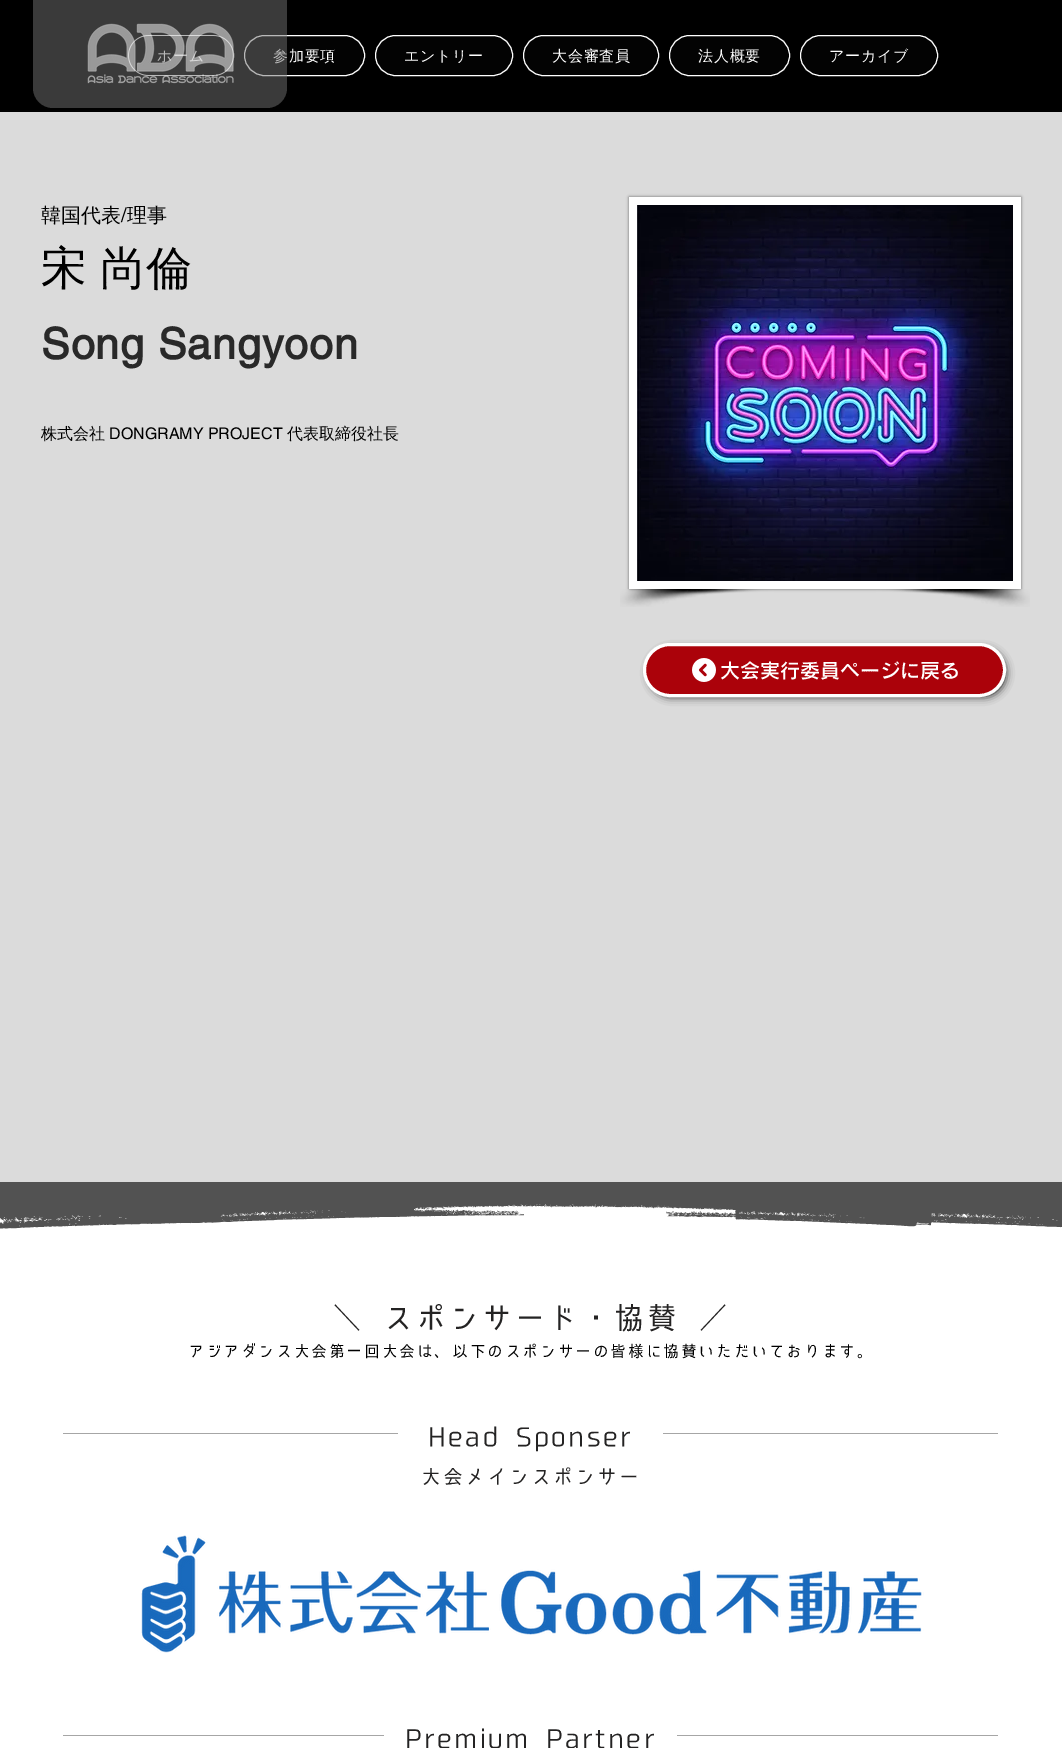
%!PS-Adobe-3.0
%%BoundingBox: 0 0 1062 1748
%%LanguageLevel: 3
%%Pages: 1
%%EndComments
%%BeginProlog
/setink { 3 { 255 div 3 1 roll } repeat setrgbcolor } def
/usefont { [ exch dup neg 0 0 3 -1 roll 0 0 ] selectfont } def
/drawtext { setink usefont moveto show } def
/fillbox { setink rectfill } def
/setalpha { dup .setfillconstantalpha .setstrokeconstantalpha } def
/rrect { 5 dict begin { /r /h /w /y /x } { exch def } forall
  x r add y moveto x w add y 2 copy h add r arct x w add y h add x 1 index r arct
  x y h add x y r arct x y 2 copy exch w add exch r arct closepath end } def
/softshadow { 12 dict begin { /a /b /q /h /w /y /x } { exch def } forall gsave /was 0 def
  9 -2 -9 { dup b mul 4 div /e exch def 1 sub .425 mul 2.718 exch exp 1 add a .99 .min exch div /now exch def
    1 1 now sub 1 was sub div sub setalpha /was now def
    w h .min e 2 mul add 0 gt { x e sub y e sub w e 2 mul add h e 2 mul add
      q e add b .6 mul add w h .min 2 div e add .min 0 .max rrect fill } if } for grestore end } def
/drawimage { 5 dict begin { /h /w /y /x /name } { exch def } forall
  gsave x y translate w h scale
  w h 8 [w 0 0 h 0 0] name (r) file false 3 colorimage grestore end } def
%%EndProlog
%%BeginSetup
<< /PageSize [1062 1748] /PageUsesTransparency true >> setpagedevice
%%EndSetup
%%Page: 1 1
0 .pushpdf14devicefilter
0 1748 translate 1 -1 scale
4 setmiterlimit
0 0 1062 1748 219 219 219 fillbox
0 0 1062 112 0 0 0 fillbox
3 3 3 setink
128.5 35.5 105 40 20 rrect gsave fill grestore
255 255 255 setink
stroke
/WenQuanYiZenHei-Medium 15 usefont
157 61 moveto 0.75 0 (ホ) ashow
3 3 3 setink
244.5 35.5 120 40 20 rrect gsave fill grestore
255 255 255 setink
stroke
273 61 moveto 0.75 0 (参加要項) ashow
0.5 setalpha
115 115 115 setink
33 0 moveto 287 0 lineto 287 88 lineto 287 99 278 108 267 108 curveto 53 108 lineto 42 108 33 99 33 88 curveto closepath fill
1 setalpha
(assets/img1.rgb) 87 23 147 61 drawimage
3 3 3 setink
375.5 35.5 137 40 20 rrect gsave fill grestore
255 255 255 setink
stroke
404 61 moveto 0.75 0 (エントリー) ashow
3 3 3 setink
523.5 35.5 135 40 20 rrect gsave fill grestore
255 255 255 setink
stroke
552 61 moveto 0.75 0 (大会審査員) ashow
3 3 3 setink
669.5 35.5 120 40 20 rrect gsave fill grestore
255 255 255 setink
stroke
698 61 moveto 0.75 0 (法人概要) ashow
3 3 3 setink
800.5 35.5 137 40 20 rrect gsave fill grestore
255 255 255 setink
stroke
829 61 moveto 0.75 0 (アーカイブ) ashow
(韓国代表) 41 222 /WenQuanYiZenHei-Medium 20 0 0 0 drawtext
(/) 121 222 /helvetica-Regular 20 0 0 0 drawtext
(理事) 127 222 /WenQuanYiZenHei-Medium 20 0 0 0 drawtext
/WenQuanYiZenHei-Medium 46 usefont
41 284 moveto -1 0 32 (宋 尚倫) widthshow
/helvetica-Bold 43 usefont
41 41 41 setink
41 359 moveto 0.9 0 (Song Sangyoon) ashow
(株式会社) 41 439 /WenQuanYiZenHei-Medium 16 0 0 0 drawtext
(DONGRAMY PROJECT) 109 439 /helvetica-Regular 16 0 0 0 drawtext
(代表取締役社長) 287 439 /WenQuanYiZenHei-Medium 16 0 0 0 drawtext
629 197 392 392 0 1.5 0.5 softshadow
629 197 392 392 255 255 255 fillbox
(assets/img2.rgb) 637 205 376 376 drawimage
(assets/img3.rgb) 620 589 154 18 drawimage
(assets/img4.rgb) 876 589 154 18 drawimage
0 0 0 setink
650 650 355 46 23 4.5 1 softshadow
171 2 10 setink
644.5 644.5 360 51 25.5 rrect gsave fill grestore
255 255 255 setink
3 setlinewidth
stroke
(assets/img5.rgb) 692 658 24 24 drawimage
(大会実行委員ページに戻る) 720 678 /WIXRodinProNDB-SemiBold 20 255 255 255 drawtext
0 1204 1062 544 255 255 255 fillbox
(assets/img6.rgb) 0 1182 1062 47 drawimage
/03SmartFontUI-Regular 30 usefont
36 35 35 setink
332 1329 moveto 3 0 (＼ スポンサード・協賛 ／) ashow
/03SmartFontUI-Regular 16 usefont
0 0 0 setink
188 1357 moveto 1.6 0 (アジアダンス大会第一回大会は、以下のスポンサーの皆様に協賛いただいております。) ashow
63 1433 335 1 166 166 166 fillbox
/03SmartFontUI-Regular 25 usefont
36 35 35 setink
428 1446 moveto 2.5 0 (Head Sponser) ashow
663 1433 335 1 166 166 166 fillbox
/03SmartFontUI-Regular 20 usefont
36 35 35 setink
421 1484 moveto 2 0 (大会メインスポンサー) ashow
(assets/img7.rgb) 141 1535 783 118 drawimage
63 1735 321 1 166 166 166 fillbox
/03SmartFontUI-Regular 25 usefont
36 35 35 setink
405 1748 moveto 2.5 0 (Premium Partner) ashow
677 1735 321 1 166 166 166 fillbox
.poppdf14devicefilter showpage
%%EOF
